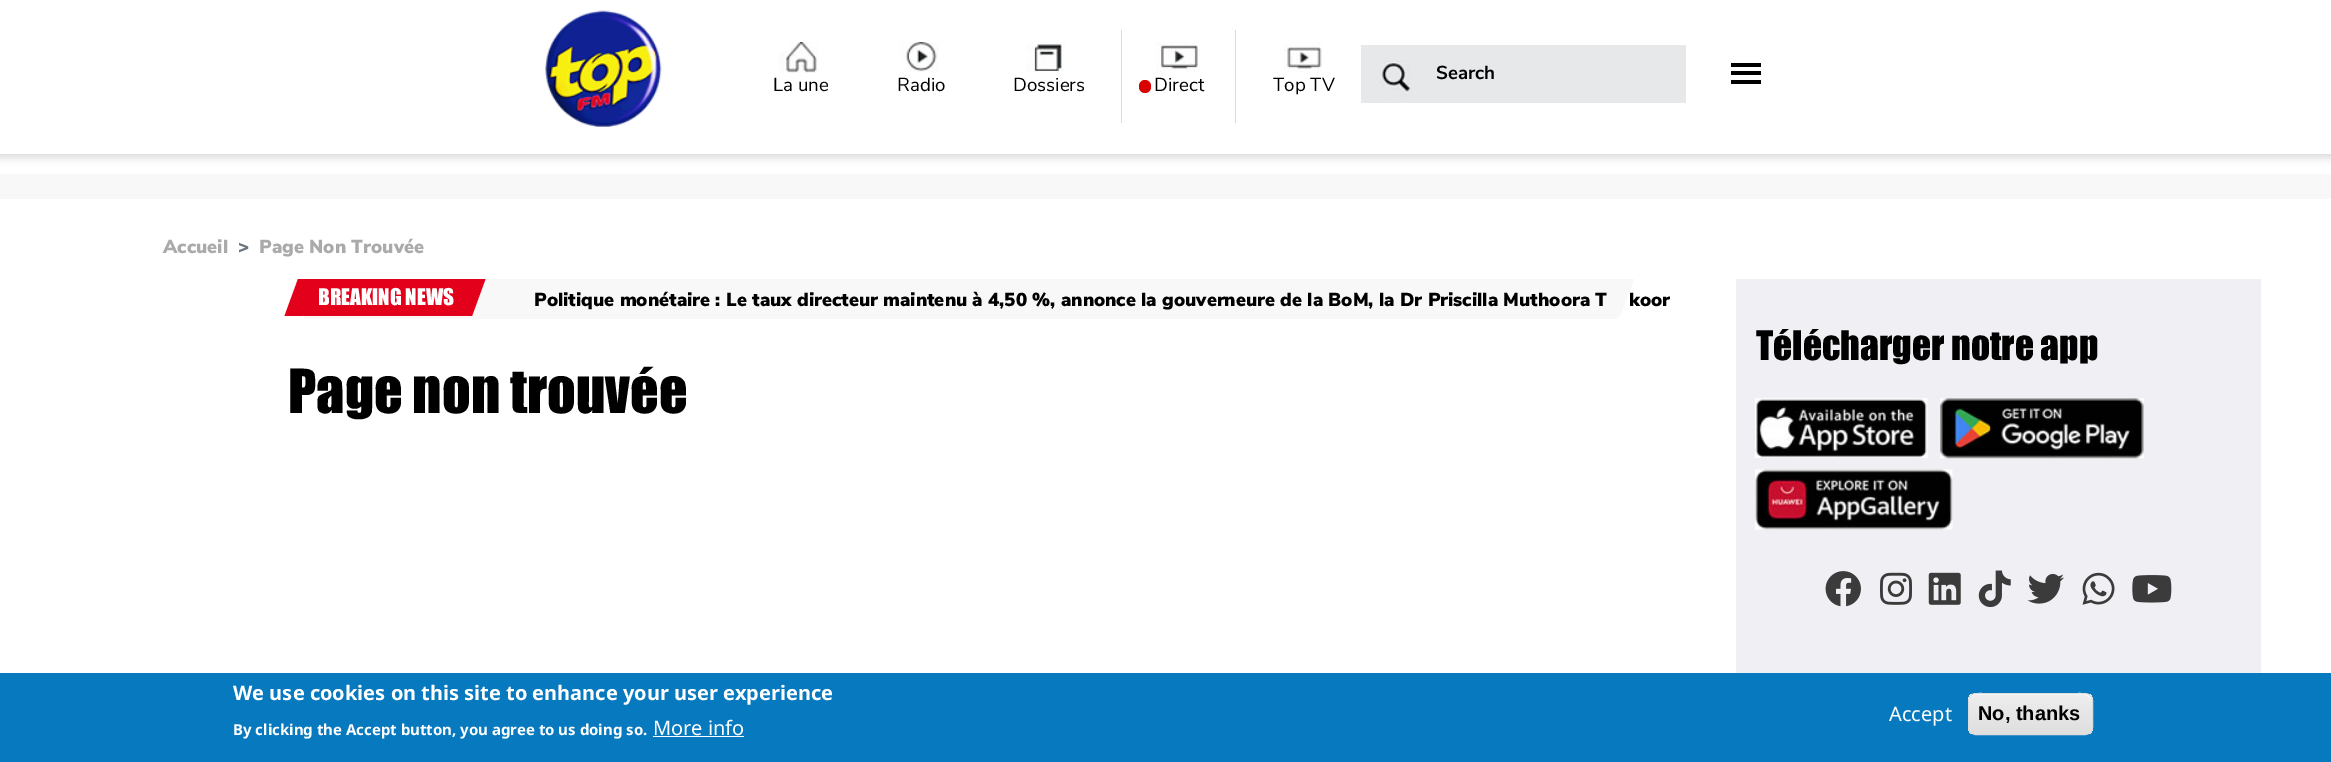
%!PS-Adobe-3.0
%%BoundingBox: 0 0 2331 762
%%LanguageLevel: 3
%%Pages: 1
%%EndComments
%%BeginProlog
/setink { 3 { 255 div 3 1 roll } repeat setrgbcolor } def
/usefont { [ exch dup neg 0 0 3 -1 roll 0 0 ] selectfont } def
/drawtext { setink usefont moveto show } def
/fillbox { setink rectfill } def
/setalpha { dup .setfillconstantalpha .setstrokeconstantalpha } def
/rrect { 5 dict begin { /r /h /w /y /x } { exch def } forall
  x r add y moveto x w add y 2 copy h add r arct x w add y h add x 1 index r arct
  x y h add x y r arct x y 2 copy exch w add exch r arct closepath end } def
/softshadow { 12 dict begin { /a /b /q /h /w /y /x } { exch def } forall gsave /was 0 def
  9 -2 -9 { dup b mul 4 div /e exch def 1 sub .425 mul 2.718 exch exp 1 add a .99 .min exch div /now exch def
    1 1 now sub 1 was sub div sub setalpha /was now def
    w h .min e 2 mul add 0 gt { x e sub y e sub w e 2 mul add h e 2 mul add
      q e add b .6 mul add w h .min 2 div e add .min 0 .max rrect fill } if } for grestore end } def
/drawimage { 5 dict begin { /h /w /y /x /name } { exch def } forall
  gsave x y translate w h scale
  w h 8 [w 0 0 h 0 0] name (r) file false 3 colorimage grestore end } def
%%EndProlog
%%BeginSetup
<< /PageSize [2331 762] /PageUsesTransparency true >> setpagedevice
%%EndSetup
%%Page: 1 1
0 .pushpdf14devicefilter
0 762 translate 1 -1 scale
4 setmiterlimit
0 0 2331 762 255 255 255 fillbox
32 36 39 setink
-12 -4 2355 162 0 4 0.16 softshadow
0 0 2331 154 255 255 255 fillbox
(assets/img1.rgb) 545 10 117 117 drawimage
1361 45 325 58 231 232 234 fillbox
(assets/img2.rgb) 1380 61 31 36 drawimage
(Search) 1436 79 /NunitoSans-Bold 18.75 0 0 0 drawtext
1731 63 30 4 0 0 0 fillbox
1731 71 30 4 0 0 0 fillbox
1731 80 30 4 0 0 0 fillbox
(assets/img3.rgb) 779 42 40 31 drawimage
(La une) 773 91 /NunitoSans-Regular 18.75 0 0 0 drawtext
(assets/img4.rgb) 900 42 39 30 drawimage
(Radio) 897 91 /NunitoSans-Regular 18.75 0 0 0 drawtext
(assets/img5.rgb) 1026 42 39 30 drawimage
(Dossiers) 1013 91 /NunitoSans-Regular 18.75 0 0 0 drawtext
1235 30 1 93 219 219 219 fillbox
1121 30 1 93 219 219 219 fillbox
(assets/img6.rgb) 1156 42 44 30 drawimage
217 0 0 setink
1139 80 12 13 6 rrect fill
(Direct) 1154 91 /NunitoSans-Regular 18.75 0 0 0 drawtext
(assets/img7.rgb) 1284 42 38 30 drawimage
(Top TV) 1273 91 /NunitoSans-Regular 18.75 0 0 0 drawtext
0 174 2331 25 248 248 248 fillbox
(Accueil) 163 253 /NunitoSans-Black 18.75 170 170 170 drawtext
(>) 238 253 /NunitoSans-Black 18.75 108 117 125 drawtext
(Page Non Trouvée) 259 253 /NunitoSans-Black 18.75 170 170 170 drawtext
226 0 26 setink
298 279 moveto 317 279 lineto 303.5 316 lineto 284.5 316 lineto closepath fill
304 279 1314 40 248 248 248 fillbox
304 279 163 37 226 0 26 fillbox
(BREAKING NEWS) 318 305 /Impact-Regular 21.25 255 255 255 drawtext
226 0 26 setink
466.5 279 moveto 485.5 279 lineto 472 316 lineto 453 316 lineto closepath fill
(Politique monétaire : Le taux directeur maintenu à 4,50 %, annonce la gouverneure de la BoM, la Dr Priscilla Muthoora T) 534 306 /NunitoSans-Black 18.75 0 0 0 drawtext
(koor) 1629 306 /NunitoSans-Black 18.75 0 0 0 drawtext
248 248 248 setink
1615.5 279 moveto 1634 279 lineto 1620.5 316 lineto 1601.5 316 lineto closepath fill
(Page non trouvée) 288 413 /Impact-Regular 56.25 0 0 0 drawtext
1736 279 525 394 240 240 244 fillbox
(Télécharger notre app) 1756 360 /Impact-Regular 37.5 0 0 0 drawtext
(assets/img8.rgb) 1755 398 173 60 drawimage
(assets/img9.rgb) 1940 398 204 61 drawimage
(assets/img10.rgb) 1755 469 198 61 drawimage
(assets/img11.rgb) 1825 571 36 36 drawimage
(assets/img12.rgb) 1880 572 32 33 drawimage
(assets/img13.rgb) 1928 572 33 33 drawimage
(assets/img14.rgb) 1978 570 33 38 drawimage
(assets/img15.rgb) 2027 573 37 31 drawimage
(assets/img16.rgb) 2082 572 33 33 drawimage
(assets/img17.rgb) 2132 575 40 28 drawimage
0 673 2331 89 7 121 191 fillbox
(We use cookies on this site to enhance your user experience) 233 700 /NotoSans-Bold 20 255 255 255 drawtext
(By clicking the Accept button, you agree to us doing so.) 233 735 /NotoSans-Bold 15 255 255 255 drawtext
(More info) 653 735 /NotoSans-Regular 20 255 255 255 drawtext
653 736 91 1 255 255 255 fillbox
(Accept) 1889 721 /NotoSans-Regular 20 255 255 255 drawtext
gsave
1968 693 125 42 8 rrect clip newpath
gsave 1968 694 moveto 2093 694 lineto 2093 734 lineto 1968 734 lineto closepath clip newpath
<< /ShadingType 2 /ColorSpace /DeviceRGB /Coords [2030 694 2030 734] /Extend [true true] /Function << /FunctionType 3 /Domain [0 1] /Functions [<< /FunctionType 2 /Domain [0 1] /C0 [0.929 0.929 0.929] /C1 [0.929 0.929 0.929] /N 1 >> << /FunctionType 2 /Domain [0 1] /C0 [0.929 0.929 0.929] /C1 [0.875 0.875 0.875] /N 1 >>] /Bounds [0.05] /Encode [0 1 0 1] >> >> shfill grestore
grestore
1975 695 moveto 2085 695 lineto 2088 695 2091 698 2091 701 curveto 2091 689 2072 694 2067 694 curveto 1993 694 lineto 1988 694 1969 689 1969 701 curveto 1969 698 1972 695 1975 695 curveto closepath fill
220 220 220 setink
1968.5 693.5 124 41 7.5 rrect stroke
(No, thanks) 1978 720 /LiberationSans-Bold 20 0 0 0 drawtext
.poppdf14devicefilter showpage
%%EOF
